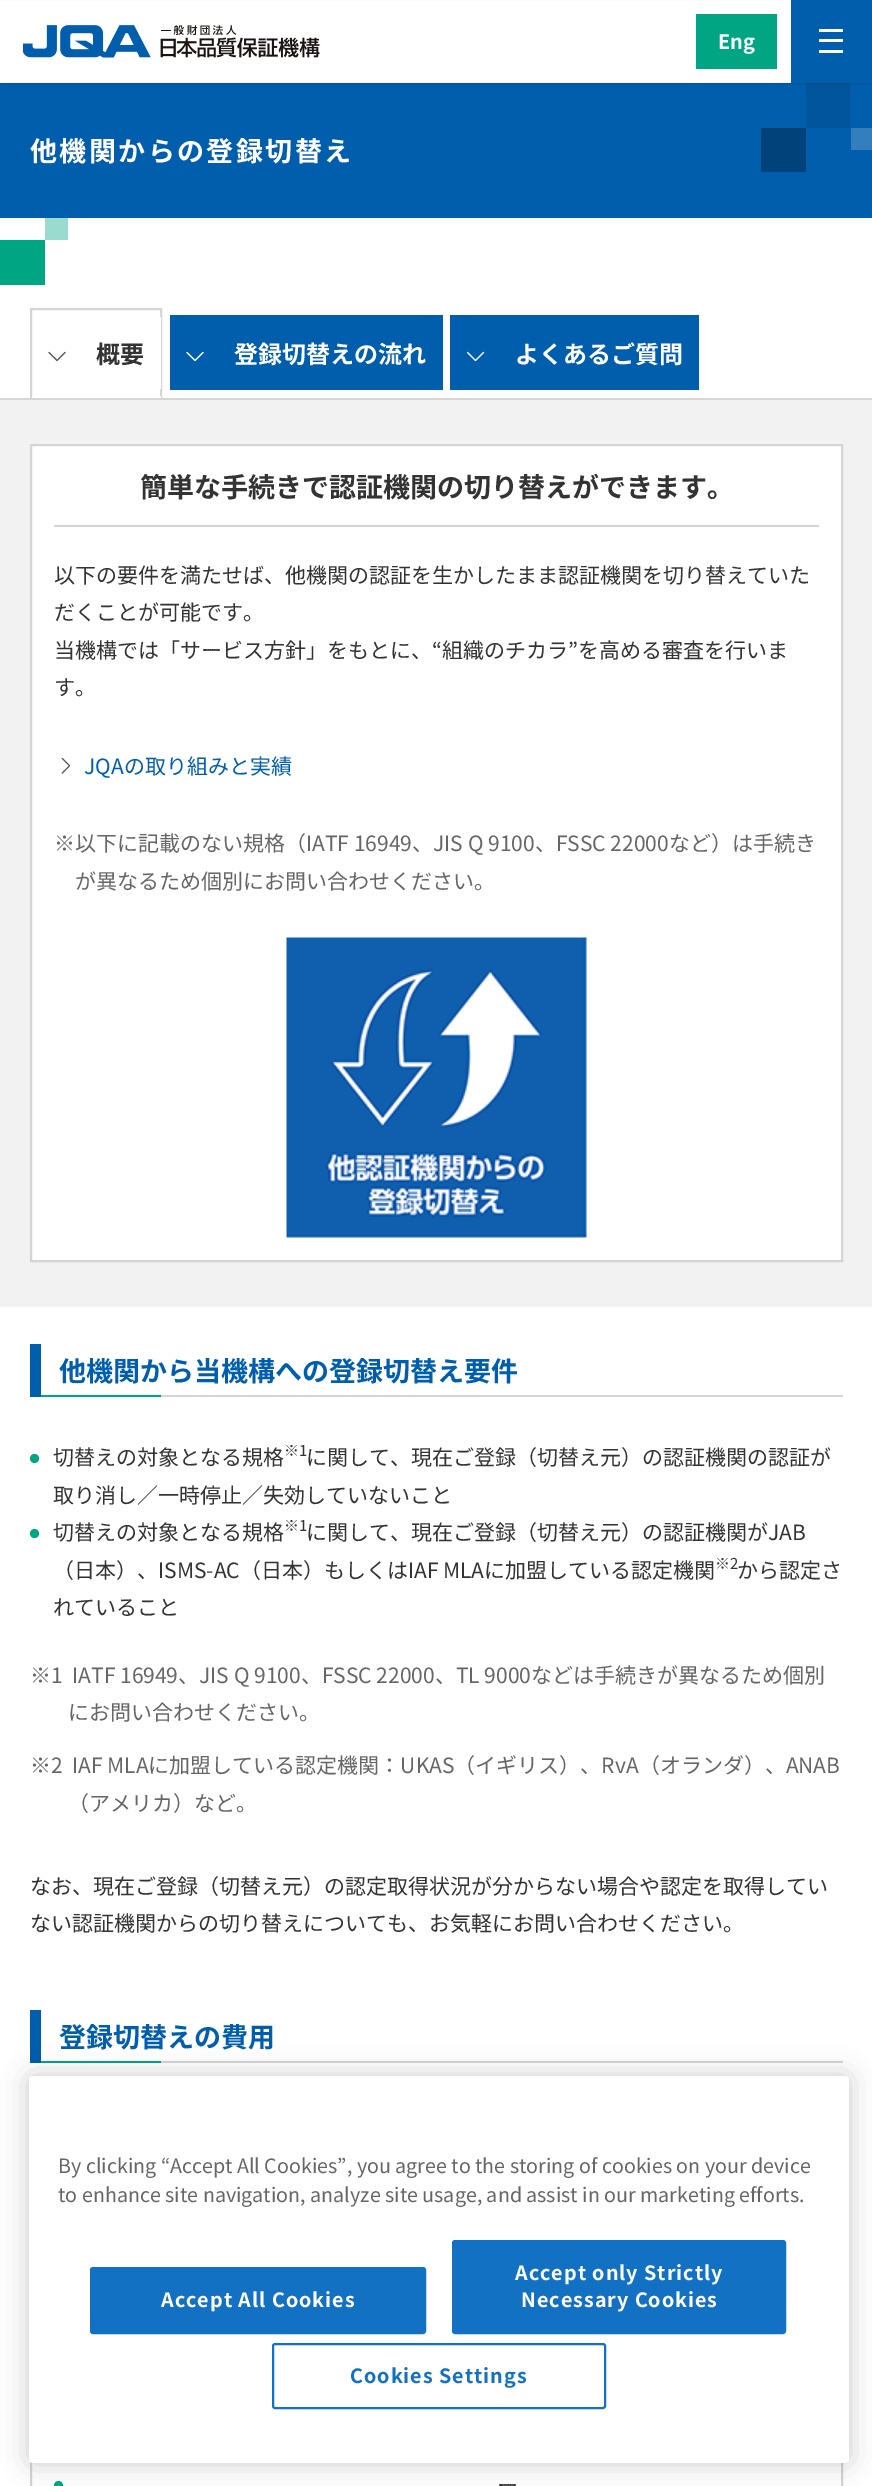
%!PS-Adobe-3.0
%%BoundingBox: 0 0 872 2486
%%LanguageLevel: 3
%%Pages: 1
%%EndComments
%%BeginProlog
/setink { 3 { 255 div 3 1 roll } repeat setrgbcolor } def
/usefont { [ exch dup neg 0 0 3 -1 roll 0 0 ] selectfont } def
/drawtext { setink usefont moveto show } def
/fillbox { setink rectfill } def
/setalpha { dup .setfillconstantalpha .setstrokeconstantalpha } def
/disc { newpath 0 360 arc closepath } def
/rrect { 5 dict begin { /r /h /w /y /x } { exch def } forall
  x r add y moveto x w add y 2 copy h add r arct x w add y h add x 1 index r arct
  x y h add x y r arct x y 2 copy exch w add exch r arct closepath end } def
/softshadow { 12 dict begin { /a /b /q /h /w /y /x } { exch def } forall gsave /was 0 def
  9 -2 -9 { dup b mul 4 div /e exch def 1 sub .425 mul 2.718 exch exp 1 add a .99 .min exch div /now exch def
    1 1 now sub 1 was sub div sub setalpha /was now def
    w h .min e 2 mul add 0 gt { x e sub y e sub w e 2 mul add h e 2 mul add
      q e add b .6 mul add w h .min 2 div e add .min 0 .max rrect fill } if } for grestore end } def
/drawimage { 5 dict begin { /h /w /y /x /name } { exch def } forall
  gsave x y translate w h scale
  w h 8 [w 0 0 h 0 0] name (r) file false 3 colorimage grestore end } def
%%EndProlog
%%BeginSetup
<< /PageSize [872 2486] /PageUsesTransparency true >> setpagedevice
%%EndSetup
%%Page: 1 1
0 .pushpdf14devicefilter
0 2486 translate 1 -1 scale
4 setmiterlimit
0 0 872 2486 255 255 255 fillbox
0 83 872 135 0 94 173 fillbox
806 83 44 45 0 85 156 fillbox
0 0 0 setink
0 2 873 82 0 1 0.16 softshadow
0 1 791 82 255 255 255 fillbox
(assets/img1.rgb) 23 25 297 33 drawimage
696 14 81 55 0 165 132 fillbox
(Eng) 718 49 /NotoSansJP-Bold 20 255 255 255 drawtext
791 0 81 83 0 94 173 fillbox
819 29 24 3 255 255 255 fillbox
819 39 24 3 255 255 255 fillbox
819 50 24 3 255 255 255 fillbox
/NotoSansJP-Bold 27 usefont
30 161 moveto 2.4 0 (他機関からの登録切替え) ashow
761 128 45 44 0 66 121 fillbox
851 128 21 22 51 126 189 fillbox
0 240 45 45 0 165 132 fillbox
45 218 23 22 153 219 206 fillbox
213 213 213 setink
2 setlinewidth
31 309 130 88 rectstroke
160 317 1 72 255 255 255 fillbox
(assets/img2.rgb) 48 351 18 11 drawimage
(概要) 96 363 /NotoSansJP-Bold 24 51 51 51 drawtext
32 396 129 2 255 255 255 fillbox
170 315 273 75 0 94 173 fillbox
(assets/img3.rgb) 186 351 18 11 drawimage
(登録切替えの流れ) 234 363 /NotoSansJP-Bold 24 255 255 255 drawtext
450 315 249 75 0 94 173 fillbox
(assets/img4.rgb) 467 351 18 11 drawimage
(よくあるご質問) 515 363 /NotoSansJP-Bold 24 255 255 255 drawtext
0 400 872 907 242 242 242 fillbox
0 398 872 2 213 213 213 fillbox
255 255 255 setink
31 445 moveto 842 445 lineto 842 1261 lineto 31 1261 lineto closepath gsave fill grestore
213 213 213 setink
stroke
54 525 765 2 213 213 213 fillbox
(簡単な手続きで認証機関の切り替えができます。) 140 497 /NotoSansJP-Bold 27 51 51 51 drawtext
(以下の要件を満たせば、他機関の認証を生かしたまま認証機関を切り替えていた) 54 583 /NotoSansJP-Regular 21 51 51 51 drawtext
(だくことが可能です。) 54 620 /NotoSansJP-Regular 21 51 51 51 drawtext
(当機構では「サービス方針」をもとに、“組織のチカラ”を高める審査を行いま) 54 658 /NotoSansJP-Regular 21 51 51 51 drawtext
(す。) 54 695 /NotoSansJP-Regular 21 51 51 51 drawtext
(assets/img5.rgb) 61 758 10 16 drawimage
(JQAの取り組みと実績) 84 774 /NotoSansJP-Regular 21 0 94 173 drawtext
(※以下に記載のない規格（IATF 16949、JIS Q 9100、FSSC 22000など）は手続き) 54 851 /NotoSansJP-Regular 21 102 102 102 drawtext
(が異なるため個別にお問い合わせください。) 75 889 /NotoSansJP-Regular 21 102 102 102 drawtext
(assets/img6.rgb) 286 937 301 301 drawimage
30 1344 11 53 0 94 173 fillbox
(他機関から当機構への登録切替え要件) 59 1381 /NotoSansJP-Bold 27 0 94 173 drawtext
41 1395 120 2 0 165 132 fillbox
161 1395 682 2 213 213 213 fillbox
0 165 132 setink
34.5 1458.5 4.5 disc fill
(切替えの対象となる規格) 53 1465 /NotoSansJP-Regular 21 51 51 51 drawtext
(※1) 284 1456 /NotoSansJP-Regular 15 51 51 51 drawtext
(に関して、現在ご登録（切替え元）の認証機関の認証が) 306 1465 /NotoSansJP-Regular 21 51 51 51 drawtext
(取り消し／一時停止／失効していないこと) 53 1503 /NotoSansJP-Regular 21 51 51 51 drawtext
0 165 132 setink
34.5 1533.5 4.5 disc fill
(切替えの対象となる規格) 53 1540 /NotoSansJP-Regular 21 51 51 51 drawtext
(※1) 284 1531 /NotoSansJP-Regular 15 51 51 51 drawtext
(に関して、現在ご登録（切替え元）の認証機関がJAB) 306 1540 /NotoSansJP-Regular 21 51 51 51 drawtext
(（日本）、ISMS-AC（日本）もしくはIAF MLAに加盟している認定機関) 53 1578 /NotoSansJP-Regular 21 51 51 51 drawtext
(※2) 715 1569 /NotoSansJP-Regular 15 51 51 51 drawtext
(から認定さ) 737 1578 /NotoSansJP-Regular 21 51 51 51 drawtext
(れていること) 53 1615 /NotoSansJP-Regular 21 51 51 51 drawtext
(※1  IATF 16949、JIS Q 9100、FSSC 22000、TL 9000などは手続きが異なるため個別) 30 1683 /NotoSansJP-Regular 21 102 102 102 drawtext
(にお問い合わせください。) 68 1720 /NotoSansJP-Regular 21 102 102 102 drawtext
(※2  IAF MLAに加盟している認定機関：UKAS（イギリス）、RvA（オランダ）、ANAB) 30 1773 /NotoSansJP-Regular 21 102 102 102 drawtext
(（アメリカ）など。) 68 1811 /NotoSansJP-Regular 21 102 102 102 drawtext
(なお、現在ご登録（切替え元）の認定取得状況が分からない場合や認定を取得してい) 30 1894 /NotoSansJP-Regular 21 51 51 51 drawtext
(ない認証機関からの切り替えについても、お気軽にお問い合わせください。) 30 1931 /NotoSansJP-Regular 21 51 51 51 drawtext
30 2010 11 53 0 94 173 fillbox
(登録切替えの費用) 59 2047 /NotoSansJP-Bold 27 0 94 173 drawtext
41 2061 120 2 0 165 132 fillbox
161 2061 682 2 213 213 213 fillbox
31 2353 811 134 rectstroke
0 165 132 setink
58.5 2485.5 4.5 disc fill
(ー) 497 2493 /NotoSansJP-Regular 21 51 51 51 drawtext
0 0 0 setink
29 2076 820 387 4 13.5 0.2 softshadow
255 255 255 setink
29 2076 820 387 4 rrect fill
(By clicking “Accept All Cookies”, you agree to the storing of cookies on your device) 58 2173 /NotoSansJP-Regular 19.7 102 102 102 drawtext
(to enhance site navigation, analyze site usage, and assist in our marketing efforts.) 58 2202 /NotoSansJP-Regular 19.7 102 102 102 drawtext
19 113 195 setink
91 2268 334 65 2 rrect gsave fill grestore
stroke
/NotoSansJP-Bold 19.7 usefont
255 255 255 setink
161 2307 moveto 1 0 (Accept All Cookies) ashow
19 113 195 setink
453 2241 332 92 2 rrect gsave fill grestore
stroke
255 255 255 setink
515 2280 moveto 1 0 (Accept only Strictly) ashow
521 2307 moveto 1 0 (Necessary Cookies) ashow
19 113 195 setink
273 2344 332 64 2 rrect stroke
350 2383 moveto 1 0 (Cookies Settings) ashow
.poppdf14devicefilter showpage
%%EOF
